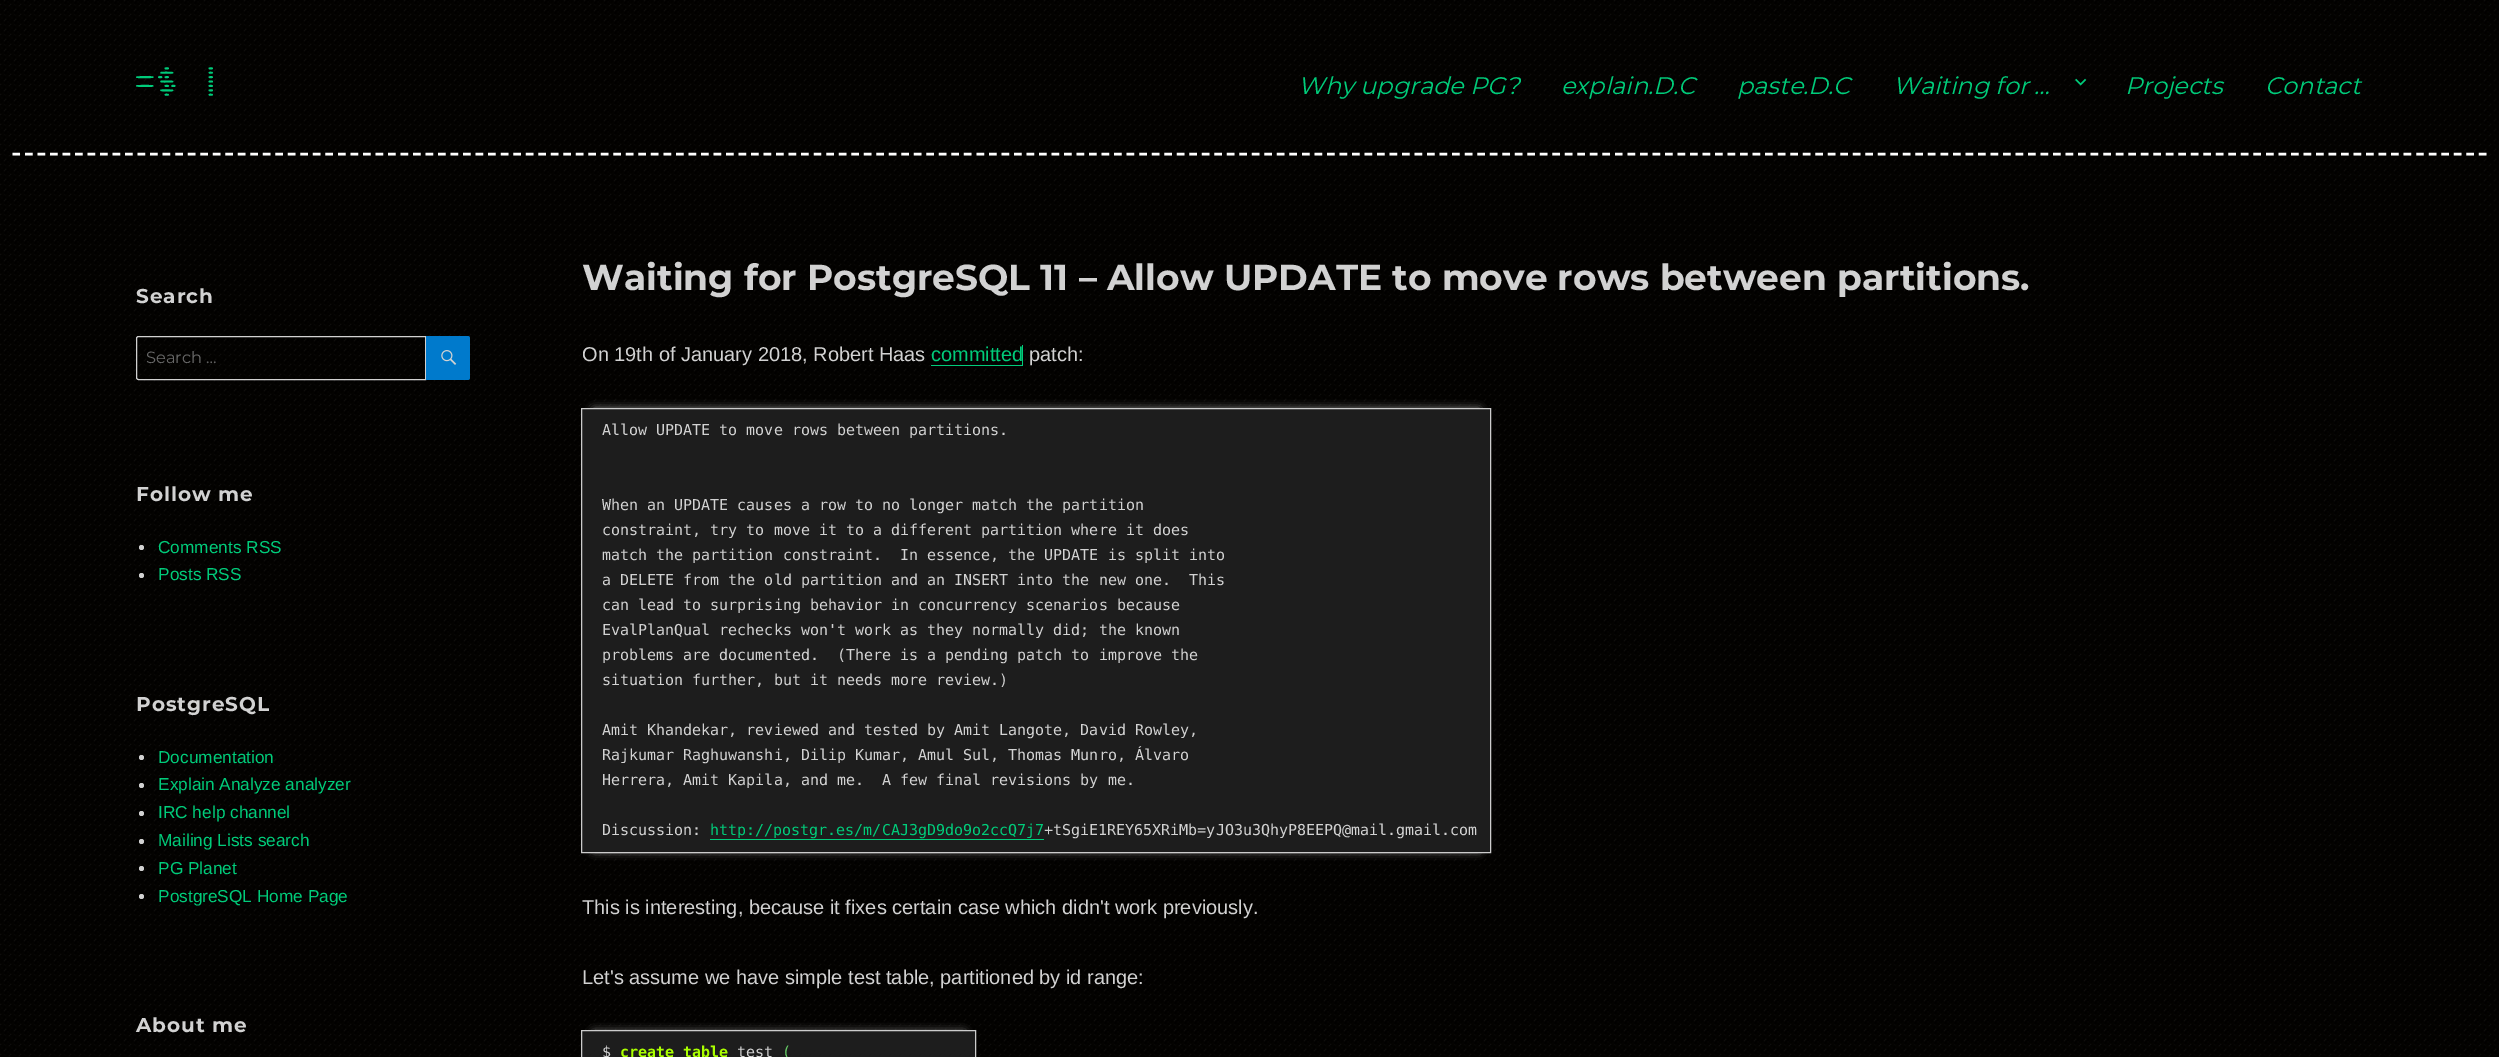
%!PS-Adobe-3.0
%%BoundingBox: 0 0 2499 1057
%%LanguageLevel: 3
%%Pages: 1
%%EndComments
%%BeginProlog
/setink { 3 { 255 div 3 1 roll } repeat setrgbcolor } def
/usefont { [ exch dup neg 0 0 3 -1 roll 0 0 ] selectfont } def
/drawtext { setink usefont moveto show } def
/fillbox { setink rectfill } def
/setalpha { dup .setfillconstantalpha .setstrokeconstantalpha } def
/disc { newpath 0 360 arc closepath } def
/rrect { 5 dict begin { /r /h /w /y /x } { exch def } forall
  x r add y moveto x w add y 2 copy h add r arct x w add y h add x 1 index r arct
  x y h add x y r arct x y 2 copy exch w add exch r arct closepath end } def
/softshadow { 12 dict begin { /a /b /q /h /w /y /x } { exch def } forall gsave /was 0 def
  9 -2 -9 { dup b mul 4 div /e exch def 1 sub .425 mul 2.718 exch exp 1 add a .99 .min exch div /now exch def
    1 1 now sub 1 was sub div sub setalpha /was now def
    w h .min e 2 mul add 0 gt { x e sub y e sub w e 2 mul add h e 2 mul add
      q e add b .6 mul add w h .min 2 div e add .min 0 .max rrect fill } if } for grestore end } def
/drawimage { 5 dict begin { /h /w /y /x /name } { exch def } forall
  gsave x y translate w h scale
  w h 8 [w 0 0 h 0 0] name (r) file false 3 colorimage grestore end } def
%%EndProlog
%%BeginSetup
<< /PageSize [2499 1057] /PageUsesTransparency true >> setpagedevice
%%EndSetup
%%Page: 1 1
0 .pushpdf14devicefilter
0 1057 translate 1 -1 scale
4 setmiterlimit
0 0 2499 1057 255 255 255 fillbox
(assets/img1.rgb) 0 0 2499 1057 drawimage
(=$ |) 136 98 /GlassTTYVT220-Medium 44 0 204 122 drawtext
(Why upgrade PG?) 1298 94 /Montserrat-ThinItalic 24 0 204 122 drawtext
(explain.D.C) 1561 94 /Montserrat-ThinItalic 24 0 204 122 drawtext
(paste.D.C) 1737 94 /Montserrat-ThinItalic 24 0 204 122 drawtext
(Waiting for …) 1893 94 /Montserrat-ThinItalic 24 0 204 122 drawtext
(assets/img2.rgb) 2075 78 12 8 drawimage
(Projects) 2125 94 /Montserrat-ThinItalic 24 0 204 122 drawtext
(Contact) 2265 94 /Montserrat-ThinItalic 24 0 204 122 drawtext
255 255 255 setink
2.5 setlinewidth
[7.5 5.02] 0 setdash
12.5 154 moveto 2487.5 154 lineto stroke
/Montserrat-Thin 20 usefont
210 210 210 setink
136 303 moveto 1 0 (Search) ashow
209 209 209 setink
1 setlinewidth
[] 0 setdash
138.5 336.5 moveto 425.5 336.5 lineto 425.5 379.5 lineto 138.5 379.5 lineto 137.5 379.5 136.5 378.5 136.5 377.5 curveto 136.5 338.5 lineto 136.5 337.5 137.5 336.5 138.5 336.5 curveto closepath stroke
(Search …) 146 363 /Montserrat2-Thin 16.25 104 104 104 drawtext
0 122 204 setink
426 336 moveto 467.5 336 lineto 469 336 470 337 470 338.5 curveto 470 377.5 lineto 470 379 469 380 467.5 380 curveto 426 380 lineto closepath fill
(assets/img3.rgb) 441 350 16 15 drawimage
/Montserrat-Thin 20 usefont
210 210 210 setink
136 501 moveto 1 0 (Follow me) ashow
141.5 547.5 2.5 disc fill
(Comments RSS) 158 553 /LiberationSans-Regular 17.25 0 204 122 drawtext
210 210 210 setink
141.5 575.5 2.5 disc fill
(Posts RSS) 158 580 /LiberationSans-Regular 17.25 0 204 122 drawtext
/Montserrat-Thin 20 usefont
210 210 210 setink
136 711 moveto 1 0 (PostgreSQL) ashow
141.5 757.5 2.5 disc fill
(Documentation) 158 763 /LiberationSans-Regular 17.25 0 204 122 drawtext
210 210 210 setink
141.5 785.5 2.5 disc fill
(Explain Analyze analyzer) 158 790 /LiberationSans-Regular 17.25 0 204 122 drawtext
210 210 210 setink
141.5 813.5 2.5 disc fill
(IRC help channel) 158 818 /LiberationSans-Regular 17.25 0 204 122 drawtext
210 210 210 setink
141.5 841.5 2.5 disc fill
(Mailing Lists search) 158 846 /LiberationSans-Regular 17.25 0 204 122 drawtext
210 210 210 setink
141.5 868.5 2.5 disc fill
(PG Planet) 158 874 /LiberationSans-Regular 17.25 0 204 122 drawtext
210 210 210 setink
141.5 896.5 2.5 disc fill
(PostgreSQL Home Page) 158 902 /LiberationSans-Regular 17.25 0 204 122 drawtext
/Montserrat-Thin 20 usefont
210 210 210 setink
136 1032 moveto 1 0 (About me) ashow
(Waiting for PostgreSQL 11 – Allow UPDATE to move rows between partitions.) 582 290 /Montserrat-Thin 36 210 210 210 drawtext
(On 19th of January 2018, Robert Haas) 582 361 /LiberationSans-Regular 20 210 210 210 drawtext
0 204 122 setink
931 345 moveto 931 366 lineto 1023 366 lineto 1023 345 lineto 1022 345 lineto 1022 365 lineto 931 365 lineto closepath fill
(committed) 931 361 /LiberationSans-Regular 20 0 204 122 drawtext
(patch:) 1029 361 /LiberationSans-Regular 20 210 210 210 drawtext
204 204 204 setink
594 410 885 420 0 4.5 1 softshadow
594 430 885 420 0 4.5 1 softshadow
29 29 29 setink
581.5 408.5 moveto 1490.5 408.5 lineto 1490.5 852.5 lineto 581.5 852.5 lineto closepath gsave fill grestore
204 204 204 setink
stroke
(Allow UPDATE to move rows between partitions.) 602 435 /DejaVuSansMono-Regular 15 210 210 210 drawtext
(When an UPDATE causes a row to no longer match the partition) 602 510 /DejaVuSansMono-Regular 15 210 210 210 drawtext
(constraint, try to move it to a different partition where it does) 602 535 /DejaVuSansMono-Regular 15 210 210 210 drawtext
(match the partition constraint.  In essence, the UPDATE is split into) 602 560 /DejaVuSansMono-Regular 15 210 210 210 drawtext
(a DELETE from the old partition and an INSERT into the new one.  This) 602 585 /DejaVuSansMono-Regular 15 210 210 210 drawtext
(can lead to surprising behavior in concurrency scenarios because) 602 610 /DejaVuSansMono-Regular 15 210 210 210 drawtext
(EvalPlanQual rechecks won't work as they normally did; the known) 602 635 /DejaVuSansMono-Regular 15 210 210 210 drawtext
(problems are documented.  \(There is a pending patch to improve the) 602 660 /DejaVuSansMono-Regular 15 210 210 210 drawtext
(situation further, but it needs more review.\)) 602 685 /DejaVuSansMono-Regular 15 210 210 210 drawtext
(Amit Khandekar, reviewed and tested by Amit Langote, David Rowley,) 602 735 /DejaVuSansMono-Regular 15 210 210 210 drawtext
(Rajkumar Raghuwanshi, Dilip Kumar, Amul Sul, Thomas Munro, Álvaro) 602 760 /DejaVuSansMono-Regular 15 210 210 210 drawtext
(Herrera, Amit Kapila, and me.  A few final revisions by me.) 602 785 /DejaVuSansMono-Regular 15 210 210 210 drawtext
(Discussion:) 602 835 /DejaVuSansMono-Regular 15 210 210 210 drawtext
(http://postgr.es/m/CAJ3gD9do9o2ccQ7j7) 710 835 /DejaVuSansMono-Regular 15 0 204 122 drawtext
710 839 moveto 710 840 lineto 1044 840 lineto 1044 823 lineto 1044 839 lineto closepath fill
(+tSgiE1REY65XRiMb=yJO3u3QhyP8EEPQ@mail.gmail.com) 1044 835 /DejaVuSansMono-Regular 15 210 210 210 drawtext
(This is interesting, because it fixes certain case which didn't work previously.) 582 914 /LiberationSans-Regular 20 210 210 210 drawtext
(Let's assume we have simple test table, partitioned by id range:) 582 984 /LiberationSans-Regular 20 210 210 210 drawtext
204 204 204 setink
594 1033 370 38 0 4.5 1 softshadow
29 29 29 setink
581.5 1030.5 moveto 975.5 1030.5 lineto 975.5 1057.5 lineto 581.5 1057.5 lineto closepath gsave fill grestore
204 204 204 setink
stroke
($) 602 1057 /DejaVuSansMono-Regular 15 210 210 210 drawtext
(create table) 620 1057 /DejaVuSansMono-Bold 15 170 255 0 drawtext
(test) 737 1057 /DejaVuSansMono-Regular 15 210 210 210 drawtext
(\() 782 1057 /DejaVuSansMono-Regular 15 102 204 102 drawtext
.poppdf14devicefilter showpage
%%EOF
